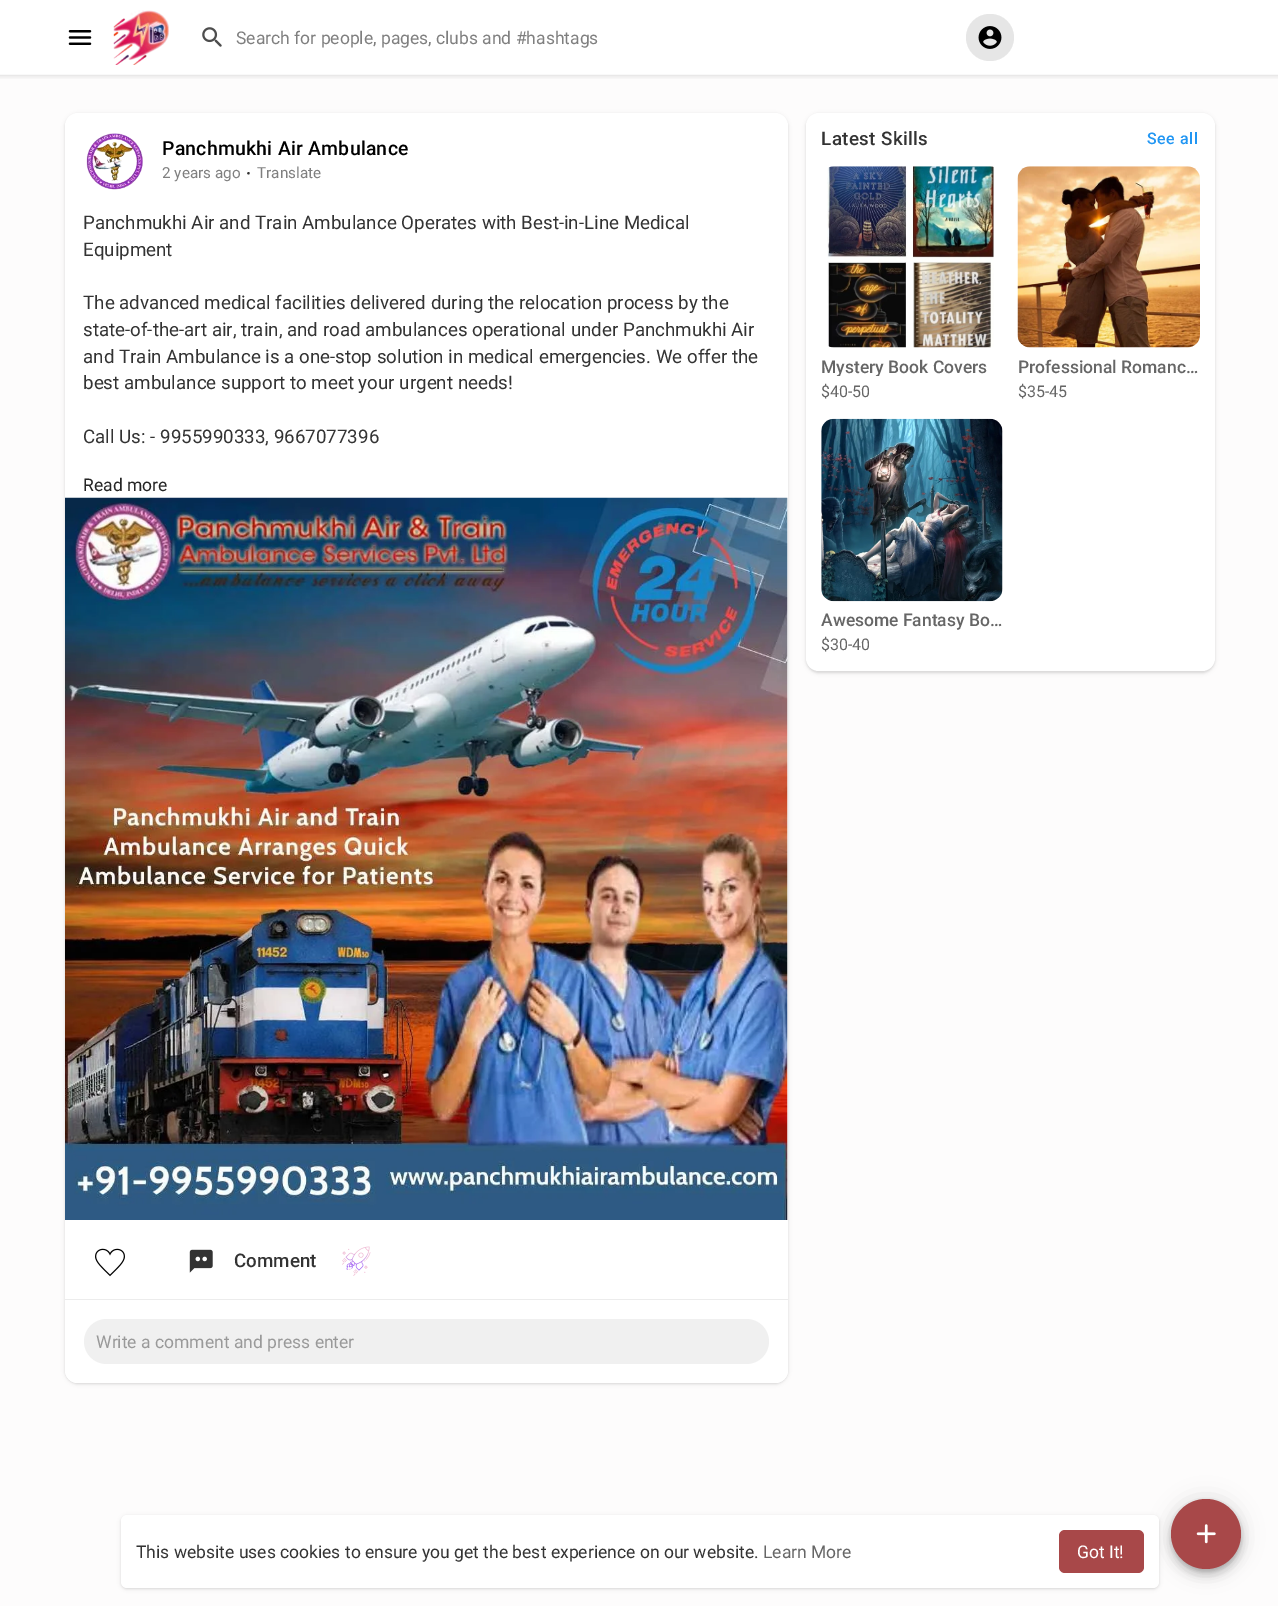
%!PS-Adobe-3.0
%%BoundingBox: 0 0 1278 1606
%%LanguageLevel: 3
%%Pages: 1
%%EndComments
%%BeginProlog
/setink { 3 { 255 div 3 1 roll } repeat setrgbcolor } def
/usefont { [ exch dup neg 0 0 3 -1 roll 0 0 ] selectfont } def
/drawtext { setink usefont moveto show } def
/fillbox { setink rectfill } def
/setalpha { dup .setfillconstantalpha .setstrokeconstantalpha } def
/disc { newpath 0 360 arc closepath } def
/rrect { 5 dict begin { /r /h /w /y /x } { exch def } forall
  x r add y moveto x w add y 2 copy h add r arct x w add y h add x 1 index r arct
  x y h add x y r arct x y 2 copy exch w add exch r arct closepath end } def
/softshadow { 12 dict begin { /a /b /q /h /w /y /x } { exch def } forall gsave /was 0 def
  9 -2 -9 { dup b mul 4 div /e exch def 1 sub .425 mul 2.718 exch exp 1 add a .99 .min exch div /now exch def
    1 1 now sub 1 was sub div sub setalpha /was now def
    w h .min e 2 mul add 0 gt { x e sub y e sub w e 2 mul add h e 2 mul add
      q e add b .6 mul add w h .min 2 div e add .min 0 .max rrect fill } if } for grestore end } def
/drawimage { 5 dict begin { /h /w /y /x /name } { exch def } forall
  gsave x y translate w h scale
  w h 8 [w 0 0 h 0 0] name (r) file false 3 colorimage grestore end } def
%%EndProlog
%%BeginSetup
<< /PageSize [1278 1606] /PageUsesTransparency true >> setpagedevice
%%EndSetup
%%Page: 1 1
0 .pushpdf14devicefilter
0 1606 translate 1 -1 scale
4 setmiterlimit
0 0 1278 1606 253 252 252 fillbox
0 0 1278 75 255 255 255 fillbox
(assets/img1.rgb) 68 30 24 15 drawimage
(assets/img2.rgb) 113 10 56 55 drawimage
(assets/img3.rgb) 202 27 20 20 drawimage
(Search for people, pages, clubs and #hashtags) 236 44 /Roboto-Regular 17.5 127 127 127 drawtext
(assets/img4.rgb) 0 74 1278 5 drawimage
230 230 230 setink
966 14 48 47 23.5 rrect fill
(assets/img5.rgb) 978 26 24 23 drawimage
0 0 0 setink
65 114 723 1270 13 1 0.06 softshadow
65 114 723 1270 13 2 0.1 softshadow
255 255 255 setink
65 113 723 1270 13 rrect fill
(assets/img6.rgb) 86 133 57 57 drawimage
/Roboto-Medium 19.4 usefont
0 0 0 setink
162 155 moveto 0.25 0 (Panchmukhi Air Ambulance) ashow
(2 years ago) 162 178 /Roboto-Regular 15.25 127 127 127 drawtext
(·) 246 179 /Roboto-Bold 16 51 51 51 drawtext
(Translate) 257 178 /Roboto-Regular 15.25 127 127 127 drawtext
(Panchmukhi Air and Train Ambulance Operates with Best-in-Line Medical) 83 229 /Roboto-Regular 18.75 51 51 51 drawtext
(Equipment) 83 256 /Roboto-Regular 18.75 51 51 51 drawtext
(The advanced medical facilities delivered during the relocation process by the) 83 309 /Roboto-Regular 18.75 51 51 51 drawtext
(state-of-the-art air, train, and road ambulances operational under Panchmukhi Air) 83 336 /Roboto-Regular 18.75 51 51 51 drawtext
(and Train Ambulance is a one-stop solution in medical emergencies. We offer the) 83 363 /Roboto-Regular 18.75 51 51 51 drawtext
(best ambulance support to meet your urgent needs!) 83 389 /Roboto-Regular 18.75 51 51 51 drawtext
(Call Us: - 9955990333, 9667077396) 83 443 /Roboto-Regular 18.75 51 51 51 drawtext
(Read more) 83 491 /Roboto-Regular 17.5 37 37 37 drawtext
787 498 1 722 246 246 246 fillbox
(assets/img7.rgb) 65 497 723 723 drawimage
(assets/img8.rgb) 95 1248 30 29 drawimage
(assets/img9.rgb) 189 1249 24 24 drawimage
(Comment) 234 1267 /Roboto-Medium 18.75 51 51 51 drawtext
(assets/img10.rgb) 342 1246 29 30 drawimage
65 1299 723 1 236 236 236 fillbox
255 255 255 setink
65 1300 723 83 13 rrect fill
240 240 240 setink
84 1319 685 45 22.5 rrect fill
(Write a comment and press enter) 96 1348 /Roboto-Regular 17.5 153 153 153 drawtext
0 0 0 setink
806 114 409 559 13 1 0.06 softshadow
806 114 409 559 13 2 0.1 softshadow
255 255 255 setink
806 113 409 558 13 rrect fill
/Roboto-Medium 18.75 usefont
51 51 51 setink
821 145 moveto 0.4 0 (Latest Skills) ashow
/Roboto-Medium 16 usefont
33 150 243 setink
1147 144 moveto 0.5 0 (See all) ashow
(assets/img11.rgb) 827 166 167 182 drawimage
gsave
821 358 182 18 rectclip
(Mystery Book Covers) 821 373 /Roboto-Medium 17.5 102 102 102 drawtext
grestore
($40-50) 821 397 /Roboto-Regular 16 102 102 102 drawtext
(assets/img12.rgb) 1017 166 183 182 drawimage
(Professional Romanc…) 1018 373 /Roboto-Medium 17.5 102 102 102 drawtext
($35-45) 1018 397 /Roboto-Regular 16 102 102 102 drawtext
(assets/img13.rgb) 821 418 182 184 drawimage
(Awesome Fantasy Bo…) 821 626 /Roboto-Medium 17.5 102 102 102 drawtext
($30-40) 821 650 /Roboto-Regular 16 102 102 102 drawtext
0 0 0 setink
121 1516 1038 73 6 1 0.06 softshadow
121 1516 1038 73 6 2 0.1 softshadow
1171 1500 70 70 35 11 0.12 softshadow
1171 1506 70 70 35 6 0.14 softshadow
255 255 255 setink
121 1515 1038 73 6 rrect fill
(This website uses cookies to ensure you get the best experience on our website.) 136 1558 /Roboto-Regular 17.5 51 51 51 drawtext
(Learn More) 763 1558 /Roboto-Regular 17.5 102 102 102 drawtext
168 72 73 setink
1059 1530 85 43 6 rrect fill
(Got It!) 1077 1558 /Roboto-Regular 17.5 255 255 255 drawtext
0 0 0 setink
1173 1504 67 67 33.5 3 0.2 softshadow
168 72 73 setink
1206 1534 35 disc fill
(assets/img14.rgb) 1196 1524 20 20 drawimage
.poppdf14devicefilter showpage
%%EOF
